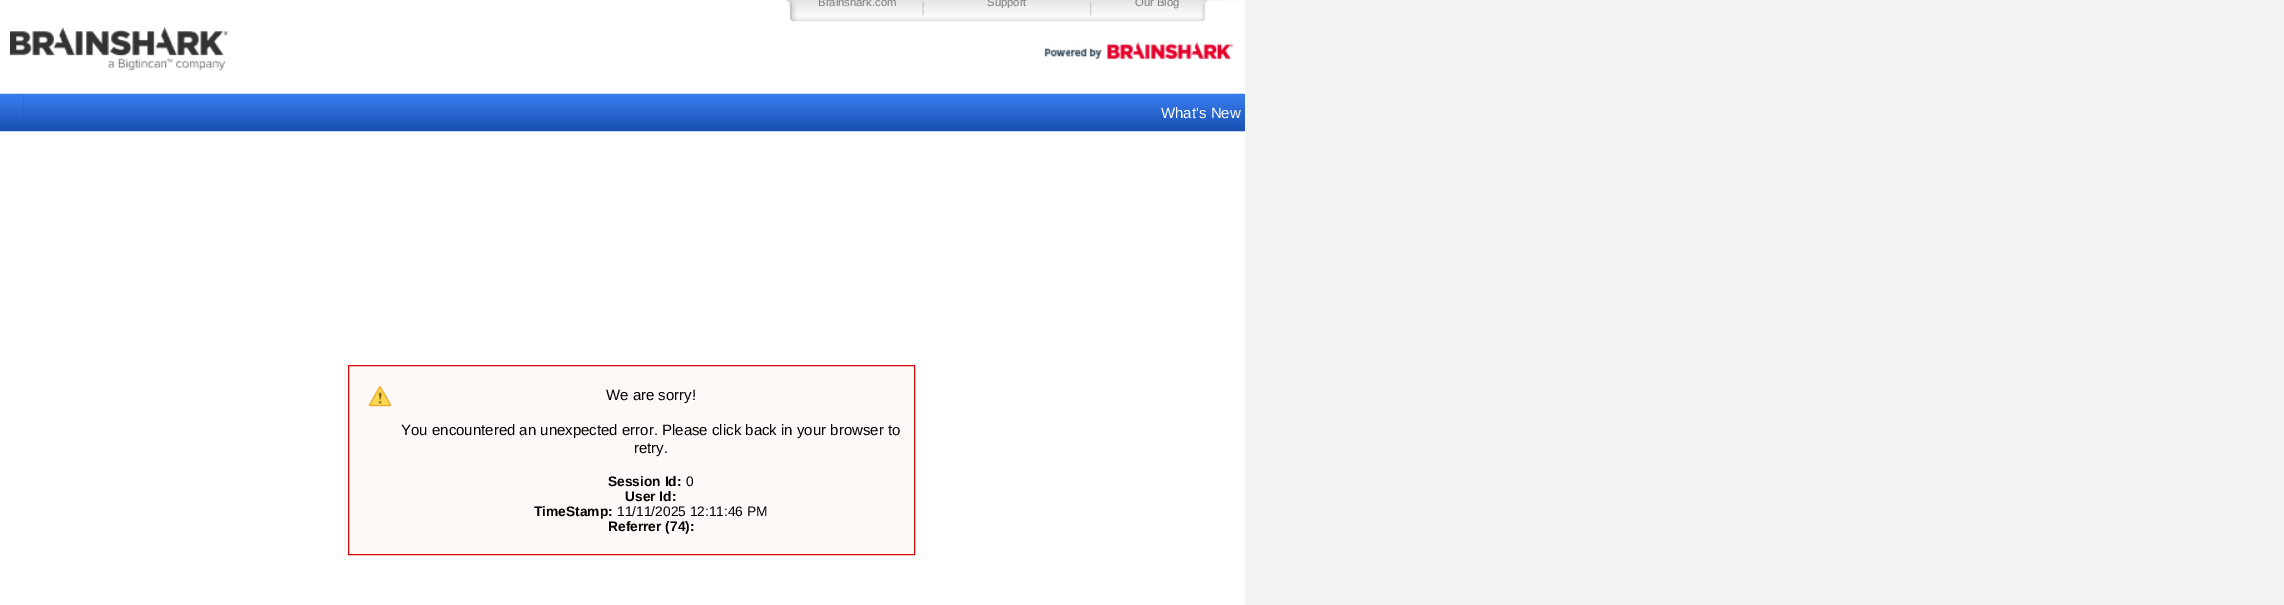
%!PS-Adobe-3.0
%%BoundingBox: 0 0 2284 605
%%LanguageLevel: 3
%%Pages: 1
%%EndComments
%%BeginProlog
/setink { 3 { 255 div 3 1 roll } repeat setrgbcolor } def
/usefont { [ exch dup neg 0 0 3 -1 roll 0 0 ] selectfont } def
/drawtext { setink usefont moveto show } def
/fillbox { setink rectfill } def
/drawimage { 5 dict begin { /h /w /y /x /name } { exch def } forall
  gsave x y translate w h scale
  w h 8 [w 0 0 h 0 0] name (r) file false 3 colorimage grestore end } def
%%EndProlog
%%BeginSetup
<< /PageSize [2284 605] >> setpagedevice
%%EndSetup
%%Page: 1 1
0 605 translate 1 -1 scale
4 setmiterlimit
0 0 2284 605 243 243 243 fillbox
0 0 1245 605 255 255 255 fillbox
(assets/img1.rgb) 785 0 460 22 drawimage
(Brainshark.com) 818 6 /LiberationSans-Regular 11.25 125 125 125 drawtext
(Support) 987 6 /LiberationSans-Regular 11.25 125 125 125 drawtext
(Our Blog) 1135 6 /LiberationSans-Regular 11.25 125 125 125 drawtext
(assets/img2.rgb) 10 27 218 44 drawimage
(assets/img3.rgb) 1044 42 189 18 drawimage
(assets/img4.rgb) 0 93 24 39 drawimage
(assets/img5.rgb) 23 93 1222 39 drawimage
(What's New) 1161 118 /LiberationSans-Regular 15 255 255 255 drawtext
349 366 565 188 254 248 246 fillbox
(assets/img6.rgb) 368 386 24 21 drawimage
205 10 10 setink
348.5 365.5 566 189 rectstroke
(We are sorry!) 606 400 /LiberationSans-Regular 15 0 0 0 drawtext
(You encountered an unexpected error. Please click back in your browser to) 401 435 /LiberationSans-Regular 15 0 0 0 drawtext
(retry.) 634 453 /LiberationSans-Regular 15 0 0 0 drawtext
(Session Id:) 608 486 /LiberationSans-Bold 13.75 0 0 0 drawtext
(0) 686 486 /LiberationSans-Regular 13.75 0 0 0 drawtext
(User Id:) 625 501 /LiberationSans-Bold 13.75 0 0 0 drawtext
(TimeStamp:) 534 516 /LiberationSans-Bold 13.75 0 0 0 drawtext
(11/11/2025 12:11:46 PM) 617 516 /LiberationSans-Regular 13.75 0 0 0 drawtext
(Referrer \(74\):) 608 531 /LiberationSans-Bold 13.75 0 0 0 drawtext
showpage
%%EOF
